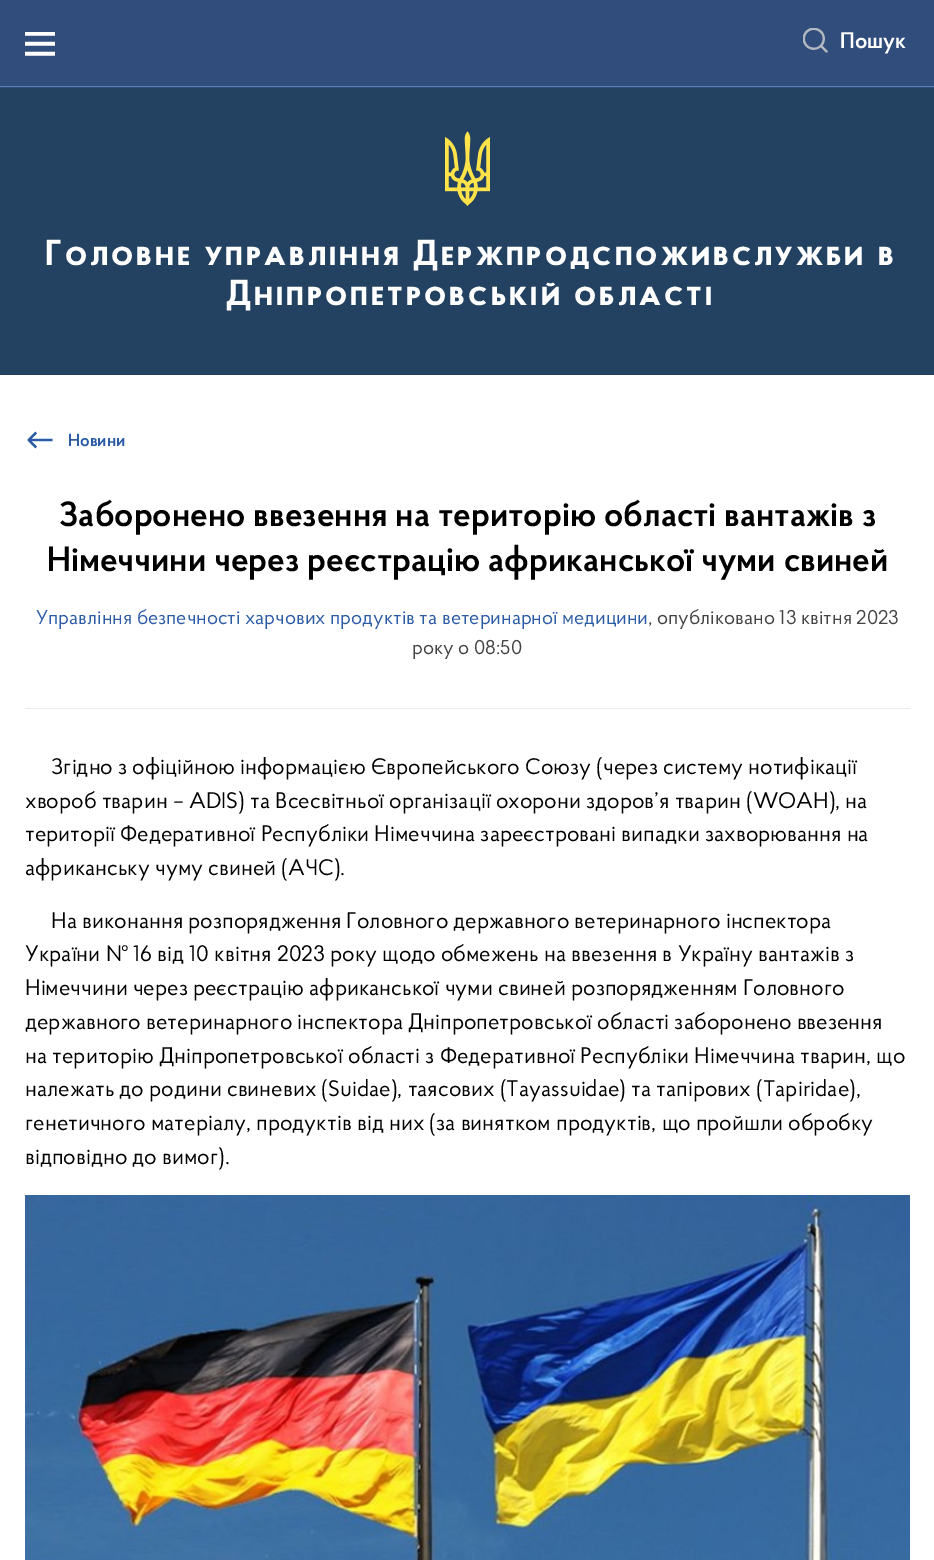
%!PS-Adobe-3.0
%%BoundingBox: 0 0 934 1560
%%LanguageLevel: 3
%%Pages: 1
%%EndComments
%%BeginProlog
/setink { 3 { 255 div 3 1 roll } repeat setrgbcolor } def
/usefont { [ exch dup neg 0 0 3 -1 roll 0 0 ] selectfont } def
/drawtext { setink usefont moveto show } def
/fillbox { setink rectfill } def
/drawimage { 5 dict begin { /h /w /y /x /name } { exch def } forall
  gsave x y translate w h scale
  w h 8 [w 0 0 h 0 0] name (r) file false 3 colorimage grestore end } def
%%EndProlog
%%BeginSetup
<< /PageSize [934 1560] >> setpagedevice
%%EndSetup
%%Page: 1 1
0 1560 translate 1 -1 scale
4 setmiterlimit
0 0 934 1560 255 255 255 fillbox
0 88 934 287 35 65 97 fillbox
0 0 934 88 48 77 124 fillbox
0 86 934 1 87 125 184 fillbox
(assets/img1.rgb) 25 32 30 24 drawimage
(assets/img2.rgb) 803 28 25 25 drawimage
(Пошук) 840 48 /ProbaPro-SemiBold 22.5 255 255 255 drawtext
(assets/img3.rgb) 445 131 45 75 drawimage
/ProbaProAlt-Bold 36 usefont
45 265 moveto 3 0 (Головне управління Держпродспоживслужби в) ashow
226 305 moveto 3 0 (Дніпропетровській області) ashow
(assets/img4.rgb) 27 431 26 18 drawimage
(Новини) 68 446 /ProbaPro-SemiBold 17.5 45 92 166 drawtext
(Заборонено ввезення на територію області вантажів з) 59 526 /ProbaPro-SemiBold 35 0 0 0 drawtext
(Німеччини через реєстрацію африканської чуми свиней) 47 571 /ProbaPro-SemiBold 35 0 0 0 drawtext
(Управління безпечності харчових продуктів та ветеринарної медицини) 36 624 /ProbaPro-Regular 20 45 92 166 drawtext
(, опубліковано 13 квітня 2023) 648 624 /ProbaPro-Regular 20 68 68 68 drawtext
(року о 08:50) 412 654 /ProbaPro-Regular 20 68 68 68 drawtext
25 708 885 1 236 236 236 fillbox
(Згідно з офіційною інформацією Європейського Союзу \(через систему нотифікації) 51 774 /ProbaPro-Regular 22.5 0 0 0 drawtext
(хвороб тварин – ADIS\) та Всесвітньої організації охорони здоров’я тварин \(WOAH\), на) 25 808 /ProbaPro-Regular 22.5 0 0 0 drawtext
(території Федеративної Республіки Німеччина зареєстровані випадки захворювання на) 25 841 /ProbaPro-Regular 22.5 0 0 0 drawtext
(африканську чуму свиней \(АЧС\).) 25 875 /ProbaPro-Regular 22.5 0 0 0 drawtext
(На виконання розпорядження Головного державного ветеринарного інспектора) 51 928 /ProbaPro-Regular 22.5 0 0 0 drawtext
(України № 16 від 10 квітня 2023 року щодо обмежень на ввезення в Україну вантажів з) 25 961 /ProbaPro-Regular 22.5 0 0 0 drawtext
(Німеччини через реєстрацію африканської чуми свиней розпорядженням Головного) 25 995 /ProbaPro-Regular 22.5 0 0 0 drawtext
(державного ветеринарного інспектора Дніпропетровської області заборонено ввезення) 25 1029 /ProbaPro-Regular 22.5 0 0 0 drawtext
(на територію Дніпропетровської області з Федеративної Республіки Німеччина тварин, що) 25 1063 /ProbaPro-Regular 22.5 0 0 0 drawtext
(належать до родини свиневих \(Suidae\), таясових \(Tayassuidae\) та тапірових \(Tapiridae\),) 25 1096 /ProbaPro-Regular 22.5 0 0 0 drawtext
(генетичного матеріалу, продуктів від них \(за винятком продуктів, що пройшли обробку) 25 1130 /ProbaPro-Regular 22.5 0 0 0 drawtext
(відповідно до вимог\).) 25 1164 /ProbaPro-Regular 22.5 0 0 0 drawtext
(assets/img5.rgb) 25 1195 885 365 drawimage
showpage
%%EOF
